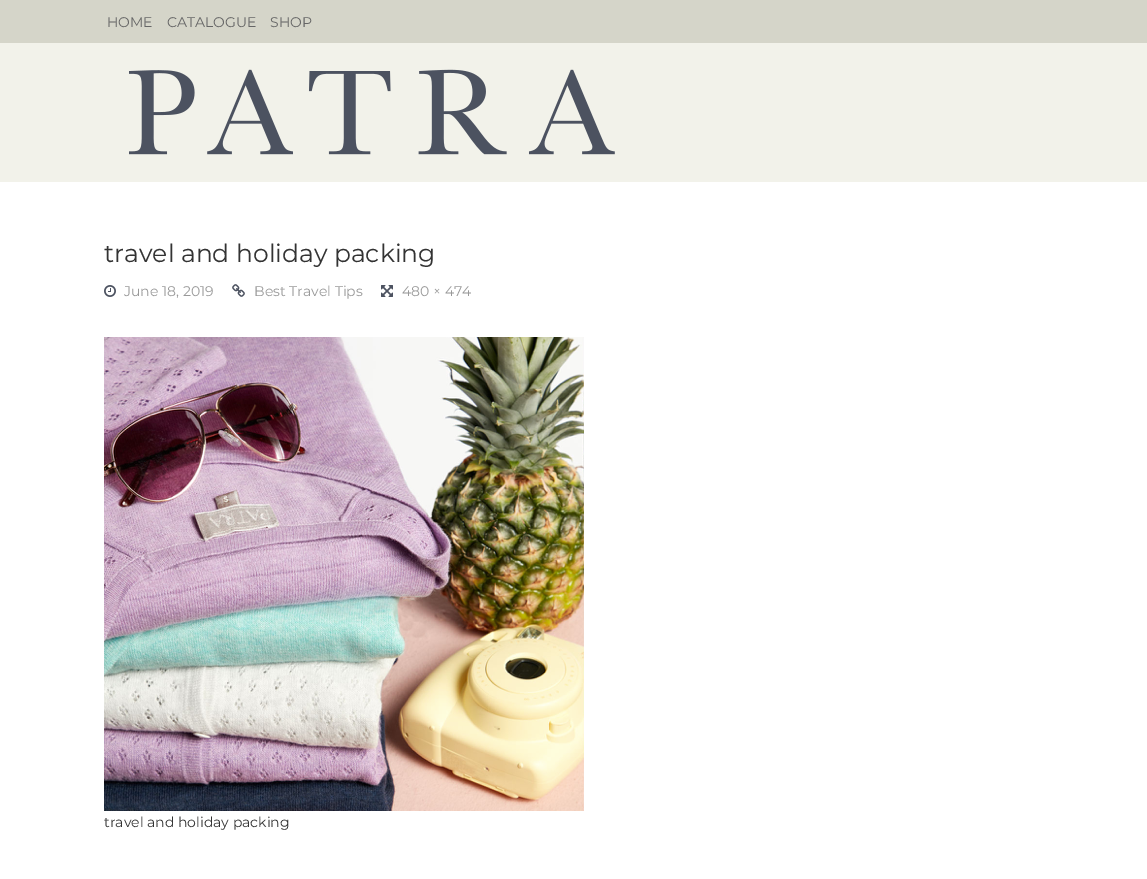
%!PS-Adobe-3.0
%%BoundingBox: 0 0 1147 879
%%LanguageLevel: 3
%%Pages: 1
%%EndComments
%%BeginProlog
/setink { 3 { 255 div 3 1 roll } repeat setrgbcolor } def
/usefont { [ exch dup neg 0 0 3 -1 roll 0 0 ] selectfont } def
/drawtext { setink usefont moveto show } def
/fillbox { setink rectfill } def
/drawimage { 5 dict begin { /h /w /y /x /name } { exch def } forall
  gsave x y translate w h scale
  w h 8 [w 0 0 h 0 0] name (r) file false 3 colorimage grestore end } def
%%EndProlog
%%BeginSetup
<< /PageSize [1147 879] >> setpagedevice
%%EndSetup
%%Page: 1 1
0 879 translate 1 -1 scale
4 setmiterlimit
0 0 1147 879 255 255 255 fillbox
0 43 1147 139 242 242 234 fillbox
0 0 1147 43 213 213 201 fillbox
(HOME) 107 27 /Montserrat-Regular 14 102 102 102 drawtext
(CATALOGUE) 167 27 /Montserrat-Regular 14 102 102 102 drawtext
(SHOP) 270 27 /Montserrat-Regular 14 102 102 102 drawtext
(assets/img1.rgb) 129 69 486 86 drawimage
(travel and holiday packing) 104 262 /Montserrat-Regular 25 51 51 51 drawtext
(assets/img2.rgb) 104 285 12 12 drawimage
(June 18, 2019) 124 296 /Montserrat-Regular 14 153 153 153 drawtext
(assets/img3.rgb) 232 284 13 13 drawimage
(Best Travel Tips) 254 296 /Montserrat-Regular 14 153 153 153 drawtext
(assets/img4.rgb) 381 285 12 12 drawimage
(480 × 474) 402 296 /Montserrat-Regular 14 153 153 153 drawtext
(assets/img5.rgb) 104 337 480 474 drawimage
(travel and holiday packing) 104 827 /Montserrat-Regular 14 51 51 51 drawtext
showpage
%%EOF
